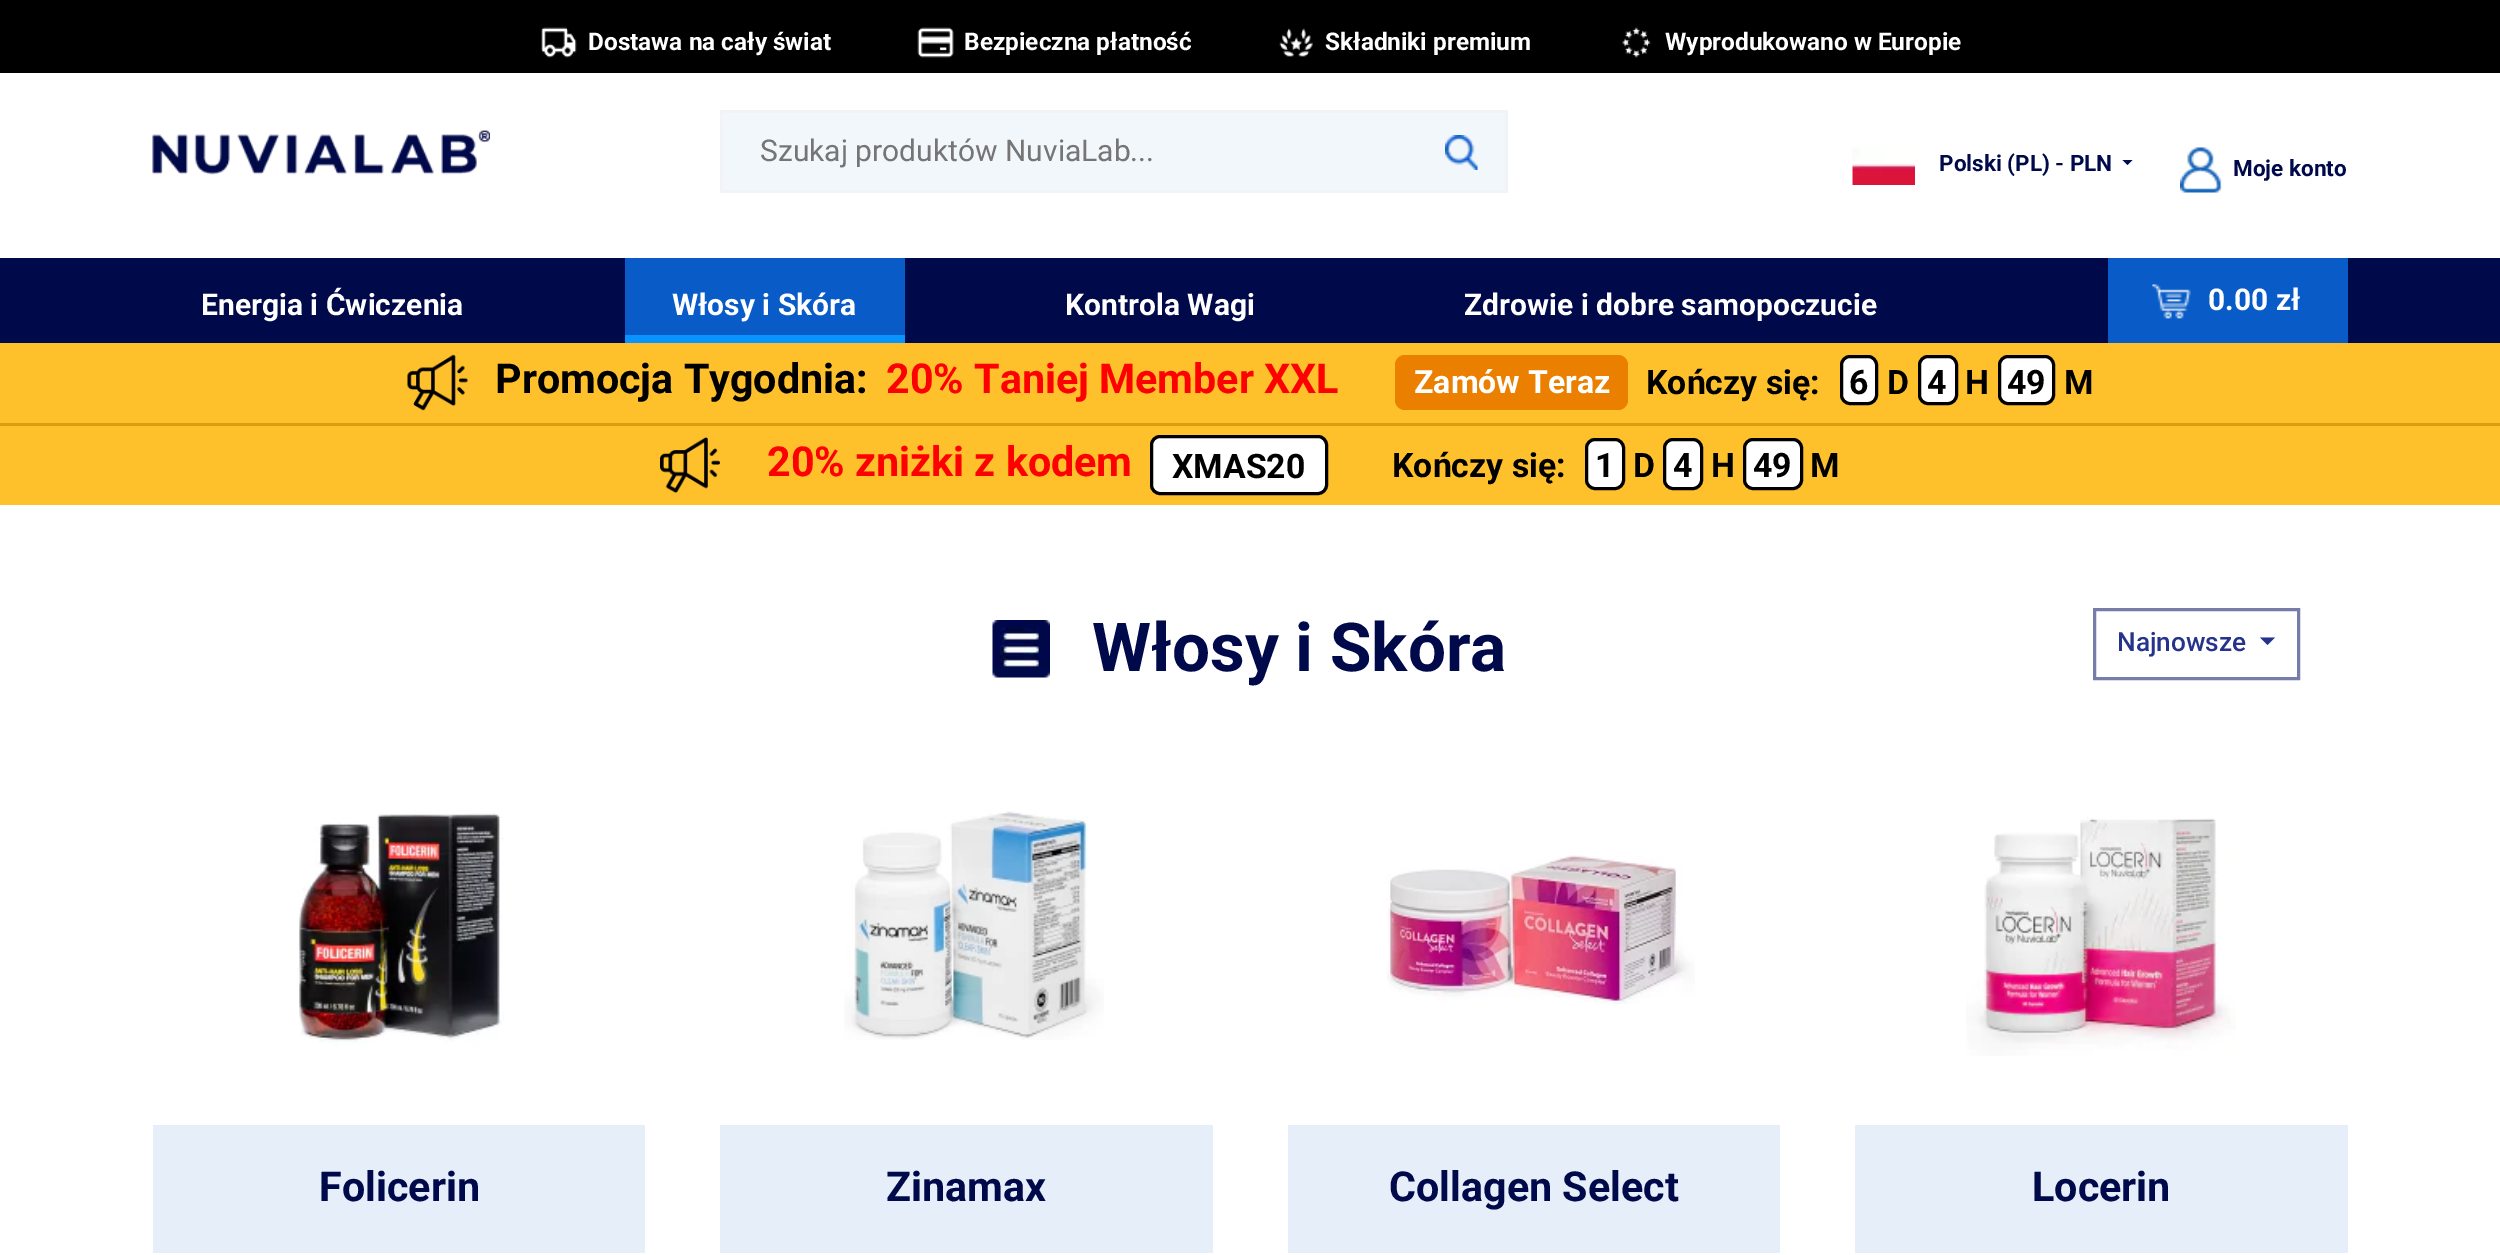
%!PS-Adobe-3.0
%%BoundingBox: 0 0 2500 1255
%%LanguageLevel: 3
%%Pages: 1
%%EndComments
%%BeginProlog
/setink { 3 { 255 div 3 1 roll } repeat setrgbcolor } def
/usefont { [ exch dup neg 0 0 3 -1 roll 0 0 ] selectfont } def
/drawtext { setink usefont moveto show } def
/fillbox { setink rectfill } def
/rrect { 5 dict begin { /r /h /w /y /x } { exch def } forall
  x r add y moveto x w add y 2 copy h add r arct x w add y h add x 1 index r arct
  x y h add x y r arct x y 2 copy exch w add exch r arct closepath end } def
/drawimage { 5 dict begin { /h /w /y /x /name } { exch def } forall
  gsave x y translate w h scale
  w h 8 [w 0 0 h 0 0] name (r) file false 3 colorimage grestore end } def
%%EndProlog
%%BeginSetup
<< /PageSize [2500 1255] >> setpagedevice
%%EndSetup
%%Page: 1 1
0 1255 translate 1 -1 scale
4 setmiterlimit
0 0 2500 1255 255 255 255 fillbox
0 0 2500 73 0 0 0 fillbox
(assets/img1.rgb) 541 27 36 31 drawimage
(Dostawa na cały świat) 588 50 /Roboto-Bold 24.4 255 255 255 drawtext
(assets/img2.rgb) 917 27 37 31 drawimage
(Bezpieczna płatność) 964 50 /Roboto-Bold 24.4 255 255 255 drawtext
(assets/img3.rgb) 1279 28 34 29 drawimage
(Składniki premium) 1325 50 /Roboto-Bold 24.4 255 255 255 drawtext
(assets/img4.rgb) 1622 27 29 31 drawimage
(Wyprodukowano w Europie) 1665 50 /Roboto-Bold 24.4 255 255 255 drawtext
(assets/img5.rgb) 152 130 338 45 drawimage
723 113 782 77 242 247 252 fillbox
720 110 788 3 242 243 246 fillbox
1505 110 3 83 242 243 246 fillbox
720 190 788 3 242 243 246 fillbox
(assets/img6.rgb) 1445 135 33 35 drawimage
720 110 3 83 242 243 246 fillbox
(Szukaj produktów NuviaLab...) 760 161 /Roboto-Regular 30 117 117 117 drawtext
(assets/img7.rgb) 1852 147 63 38 drawimage
(Polski \(PL\) - PLN) 1939 171 /Roboto-Bold 22.5 0 10 75 drawtext
2122.5 160 moveto 2132.5 160 lineto 2127.5 165 lineto closepath fill
(assets/img8.rgb) 2180 147 42 46 drawimage
(Moje konto) 2233 176 /Roboto-Bold 22.5 0 10 75 drawtext
0 258 2500 85 0 10 75 fillbox
(Energia i Ćwiczenia) 201 315 /Roboto-Bold 30 255 255 255 drawtext
625 258 280 77 9 92 200 fillbox
625 335 280 8 7 148 255 fillbox
(Włosy i Skóra) 672 315 /Roboto-Bold 30 255 255 255 drawtext
(Kontrola Wagi) 1065 315 /Roboto-Bold 30 255 255 255 drawtext
(Zdrowie i dobre samopoczucie) 1464 315 /Roboto-Bold 30 255 255 255 drawtext
2108 258 240 85 9 92 200 fillbox
(assets/img9.rgb) 2152 284 39 35 drawimage
(0.00 zł) 2208 310 /Roboto-Bold 30 255 255 255 drawtext
0 343 2500 80 254 193 44 fillbox
(assets/img10.rgb) 407 354 61 57 drawimage
(Promocja Tygodnia:) 495 393 /Roboto-Bold 41.25 0 0 0 drawtext
(20% Taniej Member XXL) 886 393 /Roboto-Bold 41.25 255 0 0 drawtext
235 127 0 setink
1395 355 233 55 10 rrect fill
(Zamów Teraz) 1414 393 /Roboto-Bold 32 255 255 255 drawtext
(Kończy się:) 1646 394 /Roboto-Bold 33.75 0 0 0 drawtext
255 255 255 setink
1841.5 356.5 35 47 8.5 rrect gsave fill grestore
0 0 0 setink
3 setlinewidth
stroke
(6) 1849 394 /Roboto-Bold 33.75 0 0 0 drawtext
(D) 1887 394 /Roboto-Bold 33.75 0 0 0 drawtext
255 255 255 setink
1919.5 356.5 37 47 8.5 rrect gsave fill grestore
0 0 0 setink
stroke
(4) 1927 394 /Roboto-Bold 33.75 0 0 0 drawtext
(H) 1965 394 /Roboto-Bold 33.75 0 0 0 drawtext
255 255 255 setink
1999.5 356.5 54 47 8.5 rrect gsave fill grestore
0 0 0 setink
stroke
(49) 2007 394 /Roboto-Bold 33.75 0 0 0 drawtext
(M) 2064 394 /Roboto-Bold 33.75 0 0 0 drawtext
0 426 2500 79 254 193 44 fillbox
0 423 2500 3 217 158 13 fillbox
(assets/img11.rgb) 660 437 60 57 drawimage
(20% zniżki z kodem) 767 476 /Roboto-Bold 41.25 255 0 0 drawtext
255 255 255 setink
1151.5 436.5 175 57 8.5 rrect gsave fill grestore
0 0 0 setink
stroke
(XMAS20) 1172 478 /Roboto-Bold 33.75 0 0 0 drawtext
(Kończy się:) 1392 477 /Roboto-Bold 33.75 0 0 0 drawtext
255 255 255 setink
1586.5 439.5 37 49 8.5 rrect gsave fill grestore
0 0 0 setink
stroke
(1) 1595 477 /Roboto-Bold 33.75 0 0 0 drawtext
(D) 1633 477 /Roboto-Bold 33.75 0 0 0 drawtext
255 255 255 setink
1664.5 439.5 37 49 8.5 rrect gsave fill grestore
0 0 0 setink
stroke
(4) 1673 477 /Roboto-Bold 33.75 0 0 0 drawtext
(H) 1711 477 /Roboto-Bold 33.75 0 0 0 drawtext
255 255 255 setink
1744.5 439.5 57 49 8.5 rrect gsave fill grestore
0 0 0 setink
stroke
(49) 1753 477 /Roboto-Bold 33.75 0 0 0 drawtext
(M) 1810 477 /Roboto-Bold 33.75 0 0 0 drawtext
(assets/img12.rgb) 992 620 58 58 drawimage
(Włosy i Skóra) 1092 671 /Roboto-Bold 67.5 0 10 75 drawtext
119 124 168 setink
2094.5 609.5 204 69 rectstroke
(Najnowsze) 2117 651 /Roboto-Medium 26.25 37 51 139 drawtext
2260 637.5 moveto 2275 637.5 lineto 2267.5 645 lineto closepath fill
(assets/img13.rgb) 297 813 207 233 drawimage
153 1125 492 128 230 238 249 fillbox
(Folicerin) 319 1201 /Roboto-Bold 41.25 0 10 75 drawtext
(assets/img14.rgb) 844 811 260 229 drawimage
720 1125 493 128 230 238 249 fillbox
(Zinamax) 886 1201 /Roboto-Bold 41.25 0 10 75 drawtext
(assets/img15.rgb) 1386 855 309 149 drawimage
1288 1125 492 128 230 238 249 fillbox
(Collagen Select) 1389 1201 /Roboto-Bold 41.25 0 10 75 drawtext
(assets/img16.rgb) 1966 817 270 239 drawimage
1855 1125 493 128 230 238 249 fillbox
(Locerin) 2032 1201 /Roboto-Bold 41.25 0 10 75 drawtext
showpage
%%EOF
